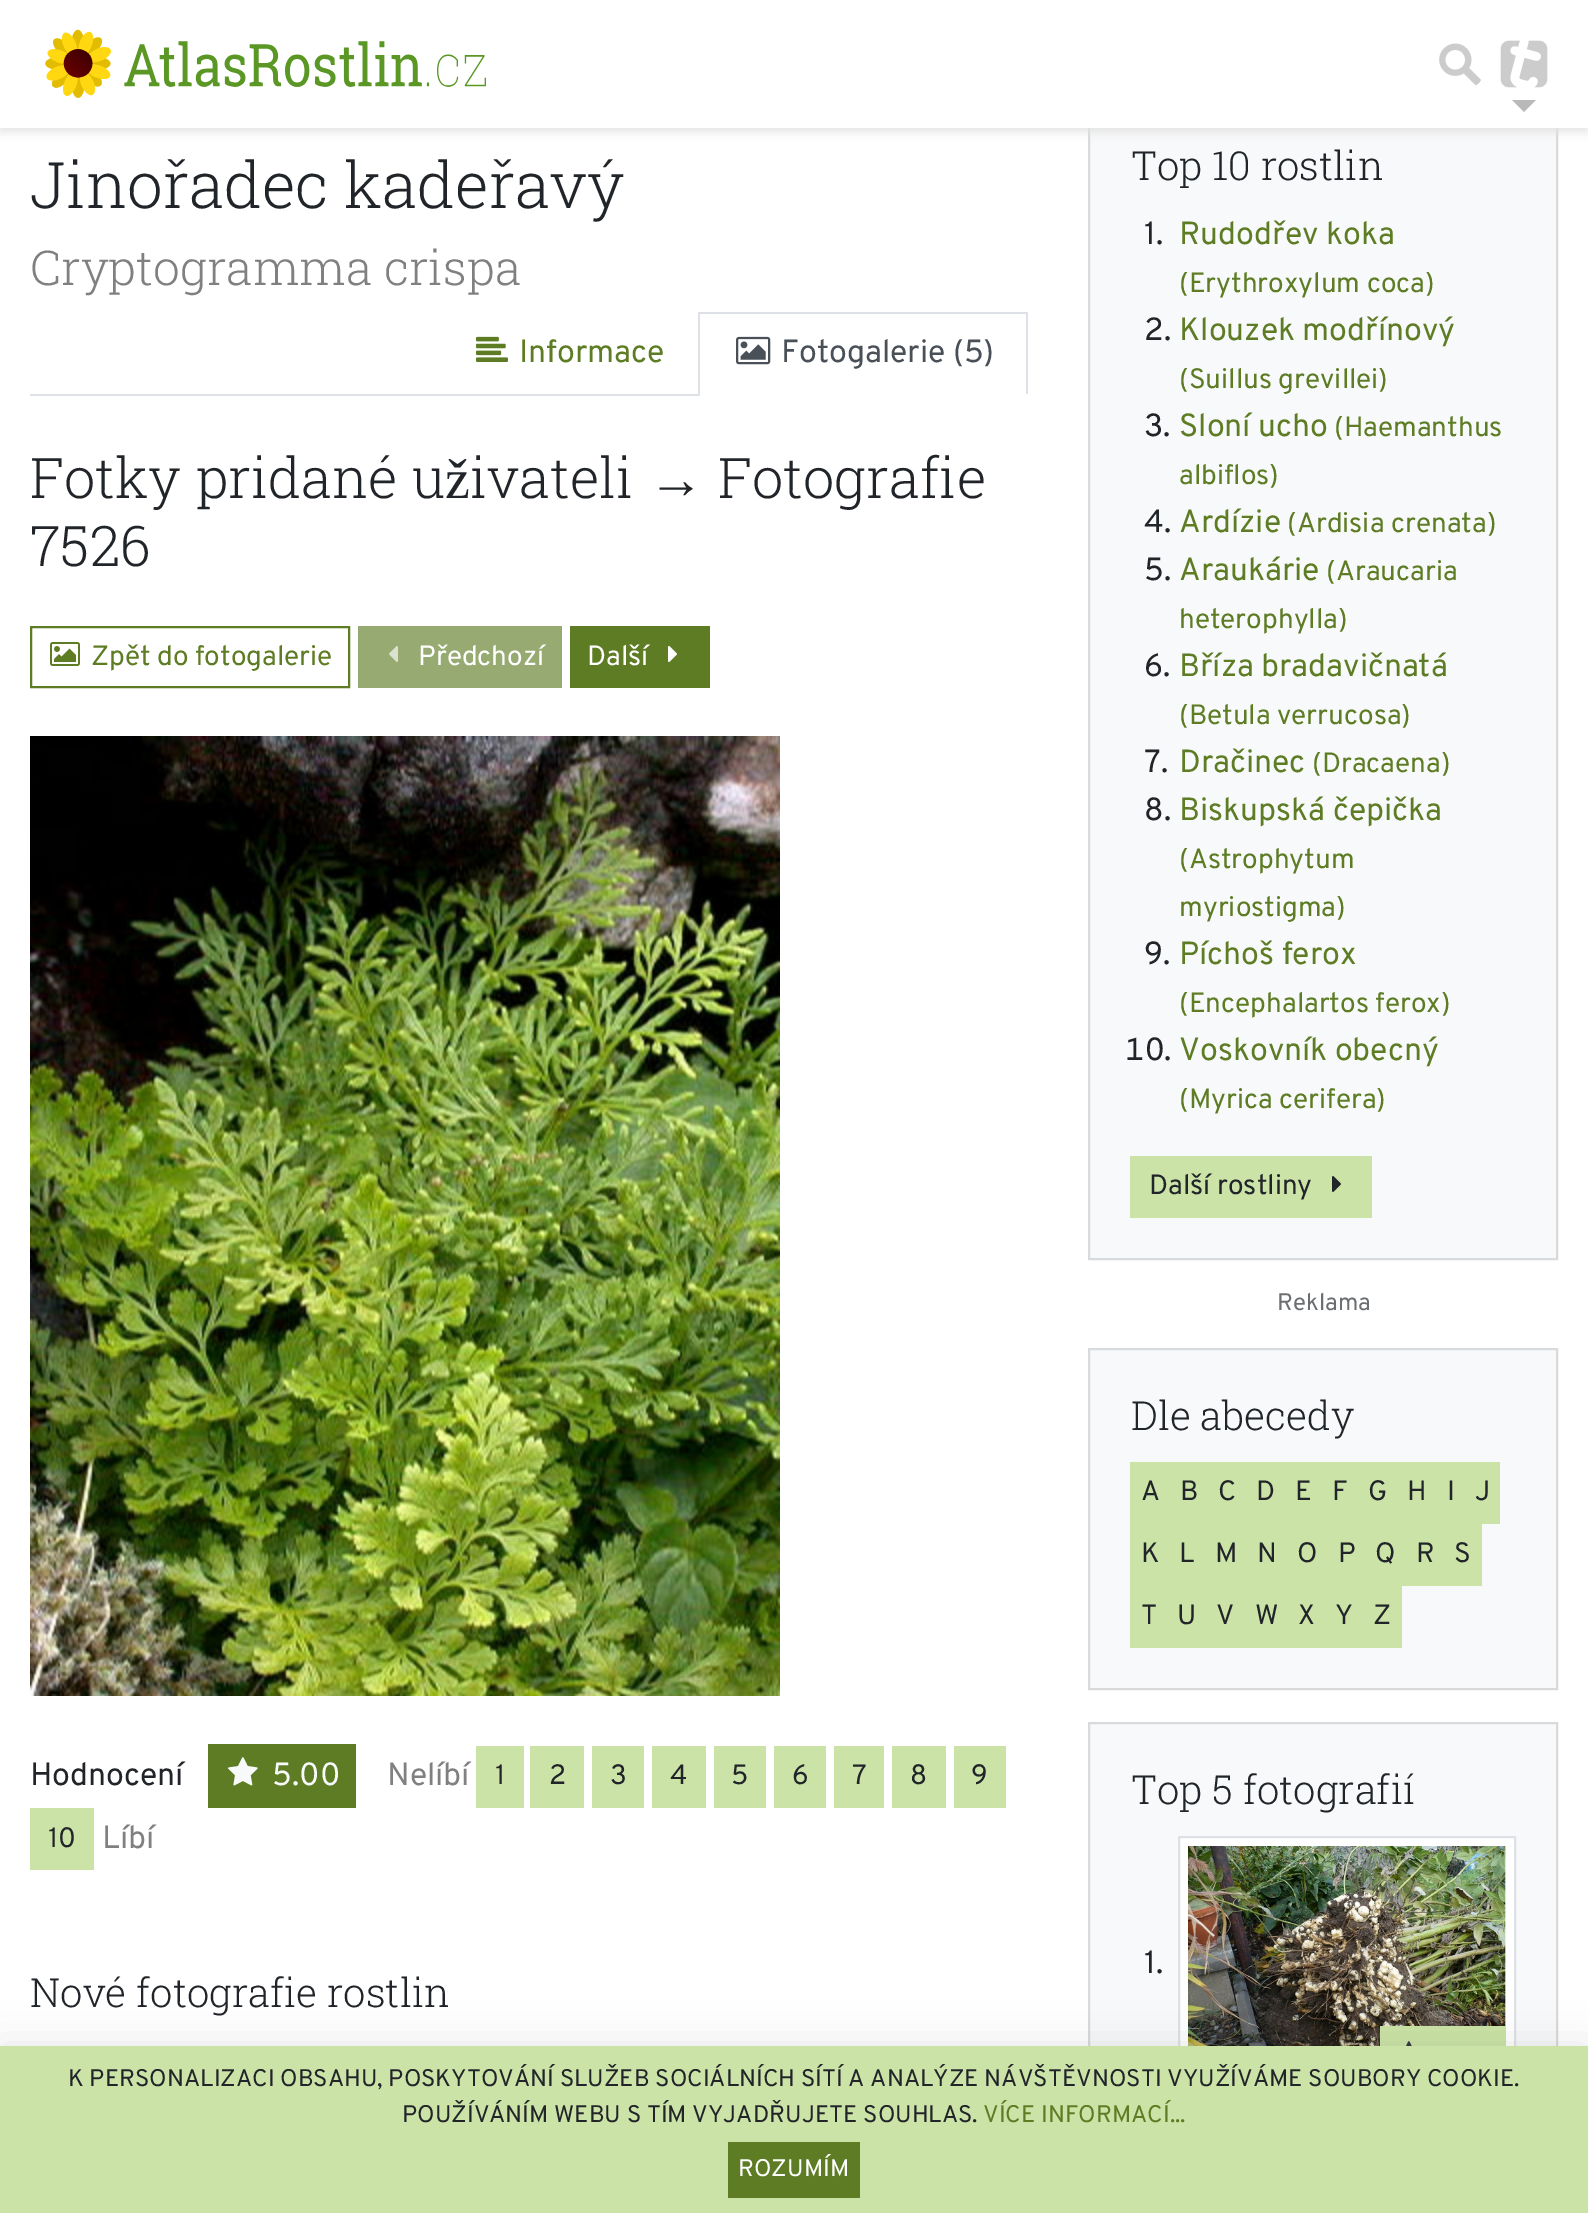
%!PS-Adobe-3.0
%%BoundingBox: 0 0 1588 2213
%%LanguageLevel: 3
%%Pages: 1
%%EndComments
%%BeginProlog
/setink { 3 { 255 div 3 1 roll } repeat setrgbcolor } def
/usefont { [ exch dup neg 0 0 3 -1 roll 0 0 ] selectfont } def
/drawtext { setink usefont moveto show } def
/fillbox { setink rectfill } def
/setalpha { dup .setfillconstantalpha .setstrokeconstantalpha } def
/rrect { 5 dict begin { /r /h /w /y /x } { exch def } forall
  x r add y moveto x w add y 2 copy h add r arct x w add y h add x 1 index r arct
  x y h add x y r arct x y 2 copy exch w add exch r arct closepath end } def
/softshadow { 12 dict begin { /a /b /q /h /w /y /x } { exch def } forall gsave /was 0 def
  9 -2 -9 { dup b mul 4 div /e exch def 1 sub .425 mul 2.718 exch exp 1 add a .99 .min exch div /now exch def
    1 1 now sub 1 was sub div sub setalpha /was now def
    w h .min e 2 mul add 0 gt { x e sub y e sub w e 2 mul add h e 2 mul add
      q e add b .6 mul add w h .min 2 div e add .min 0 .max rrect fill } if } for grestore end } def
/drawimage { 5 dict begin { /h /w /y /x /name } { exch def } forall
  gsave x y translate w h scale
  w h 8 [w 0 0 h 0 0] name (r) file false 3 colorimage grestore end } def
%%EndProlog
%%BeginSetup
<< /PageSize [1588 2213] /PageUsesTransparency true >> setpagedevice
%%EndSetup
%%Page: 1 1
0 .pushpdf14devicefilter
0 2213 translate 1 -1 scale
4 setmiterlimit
0 0 1588 2213 255 255 255 fillbox
1090 128 466 1130 248 249 250 fillbox
217 218 219 setink
2 setlinewidth
1089 99 468 1160 rectstroke
226 226 226 setink
0 4 1588 128 0 5 1 softshadow
0 0 1588 128 255 255 255 fillbox
(assets/img1.rgb) 45 29 441 69 drawimage
(assets/img2.rgb) 1439 43 42 43 drawimage
(assets/img3.rgb) 1500 40 48 48 drawimage
185 185 185 setink
1512 100 moveto 1536 100 lineto 1524 112 lineto closepath fill
(Jinořadec kadeřavý) 30 208 /RobotoSlab-Light 64 33 37 41 drawtext
(Cryptogramma crispa) 30 285 /RobotoSlab-Light 48 128 128 128 drawtext
30 394 668 2 222 226 230 fillbox
(assets/img4.rgb) 476 336 32 26 drawimage
(Informace) 519 362 /Overpass-Regular 32 93 124 36 drawtext
698 312 330 2 222 226 230 fillbox
1026 312 2 84 222 226 230 fillbox
1026 394 2 2 255 255 255 fillbox
698 312 2 84 222 226 230 fillbox
(assets/img5.rgb) 736 336 35 29 drawimage
(Fotogalerie \(5\)) 781 362 /Overpass-Regular 32 73 80 87 drawtext
/RobotoSlab-Light 56 usefont
33 37 41 setink
30 498 moveto 1 0 32 (Fotky pridané u) widthshow
(ž) 445 498 /LiberationSerif-Regular 56 33 37 41 drawtext
(ivateli) 470 498 /RobotoSlab-Light 56 33 37 41 drawtext
(→) 648 498 /LiberationSerif-Regular 56 33 37 41 drawtext
(Fotografie) 718 498 /RobotoSlab-Light 56 33 37 41 drawtext
(7526) 30 566 /RobotoSlab-Light 56 33 37 41 drawtext
93 124 36 setink
31 627 318 60 rectstroke
(assets/img6.rgb) 50 642 30 24 drawimage
(Zpět do fotogalerie) 91 665 /Overpass-Regular 28 93 124 36 drawtext
358 626 204 62 150 170 113 fillbox
(assets/img7.rgb) 389 646 9 16 drawimage
(Předchozí) 418 665 /Overpass-Regular 28 255 255 255 drawtext
570 626 140 62 93 124 36 fillbox
(Další) 587 665 /Overpass-Regular 28 255 255 255 drawtext
(assets/img8.rgb) 668 646 9 16 drawimage
(assets/img9.rgb) 30 736 750 960 drawimage
(Hodnocení) 30 1785 /Overpass-Regular 32 33 37 41 drawtext
208 1744 148 64 93 124 36 fillbox
(assets/img10.rgb) 228 1757 30 29 drawimage
(5.00) 272 1785 /Overpass-Regular 32 248 249 250 drawtext
(Nelíbí) 387 1785 /Overpass-Regular 32 128 128 128 drawtext
476 1746 48 62 204 227 167 fillbox
(1) 495 1784 /Overpass-Regular 28 33 37 41 drawtext
530 1746 54 62 204 227 167 fillbox
(2) 549 1784 /Overpass-Regular 28 33 37 41 drawtext
592 1746 52 62 204 227 167 fillbox
(3) 610 1784 /Overpass-Regular 28 33 37 41 drawtext
652 1746 54 62 204 227 167 fillbox
(4) 670 1784 /Overpass-Regular 28 33 37 41 drawtext
714 1746 52 62 204 227 167 fillbox
(5) 731 1784 /Overpass-Regular 28 33 37 41 drawtext
774 1746 52 62 204 227 167 fillbox
(6) 792 1784 /Overpass-Regular 28 33 37 41 drawtext
834 1746 50 62 204 227 167 fillbox
(7) 852 1784 /Overpass-Regular 28 33 37 41 drawtext
892 1746 54 62 204 227 167 fillbox
(8) 910 1784 /Overpass-Regular 28 33 37 41 drawtext
954 1746 52 62 204 227 167 fillbox
(9) 971 1784 /Overpass-Regular 28 33 37 41 drawtext
30 1808 64 62 204 227 167 fillbox
(10) 48 1847 /Overpass-Regular 28 33 37 41 drawtext
(Líbí) 102 1848 /Overpass-Regular 32 128 128 128 drawtext
(Nové fotografie rostlin) 30 2007 /RobotoSlab-Light 40 33 37 41 drawtext
(Top 10 rostlin) 1131 180 /RobotoSlab-Light 40 33 37 41 drawtext
(1.) 1144 244 /Overpass-Regular 32 33 37 41 drawtext
(Rudodřev koka) 1179 244 /Overpass-Regular 32 93 124 36 drawtext
(\(Erythroxylum coca\)) 1179 292 /Overpass-Regular 28 93 124 36 drawtext
(2.) 1144 340 /Overpass-Regular 32 33 37 41 drawtext
(Klouzek modřínový) 1179 340 /Overpass-Regular 32 93 124 36 drawtext
(\(Suillus grevillei\)) 1179 388 /Overpass-Regular 28 93 124 36 drawtext
(3.) 1144 436 /Overpass-Regular 32 33 37 41 drawtext
(Sloní ucho) 1179 436 /Overpass-Regular 32 93 124 36 drawtext
(\(Haemanthus) 1334 436 /Overpass-Regular 28 93 124 36 drawtext
(albiflos\)) 1179 484 /Overpass-Regular 28 93 124 36 drawtext
(4.) 1144 532 /Overpass-Regular 32 33 37 41 drawtext
(Ardízie) 1179 532 /Overpass-Regular 32 93 124 36 drawtext
(\(Ardisia crenata\)) 1287 532 /Overpass-Regular 28 93 124 36 drawtext
(5.) 1144 580 /Overpass-Regular 32 33 37 41 drawtext
(Araukárie) 1179 580 /Overpass-Regular 32 93 124 36 drawtext
(\(Araucaria) 1326 580 /Overpass-Regular 28 93 124 36 drawtext
(heterophylla\)) 1179 628 /Overpass-Regular 28 93 124 36 drawtext
(6.) 1144 676 /Overpass-Regular 32 33 37 41 drawtext
(Bříza bradavičnatá) 1179 676 /Overpass-Regular 32 93 124 36 drawtext
(\(Betula verrucosa\)) 1179 724 /Overpass-Regular 28 93 124 36 drawtext
(7.) 1144 772 /Overpass-Regular 32 33 37 41 drawtext
(Dračinec) 1179 772 /Overpass-Regular 32 93 124 36 drawtext
(\(Dracaena\)) 1312 772 /Overpass-Regular 28 93 124 36 drawtext
(8.) 1144 820 /Overpass-Regular 32 33 37 41 drawtext
(Biskupská čepička) 1179 820 /Overpass-Regular 32 93 124 36 drawtext
(\(Astrophytum) 1179 868 /Overpass-Regular 28 93 124 36 drawtext
(myriostigma\)) 1179 916 /Overpass-Regular 28 93 124 36 drawtext
(9.) 1144 964 /Overpass-Regular 32 33 37 41 drawtext
(Píchoš ferox) 1179 964 /Overpass-Regular 32 93 124 36 drawtext
(\(Encephalartos ferox\)) 1179 1012 /Overpass-Regular 28 93 124 36 drawtext
(10.) 1125 1060 /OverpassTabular-Regular 32 33 37 41 drawtext
(Voskovník obecný) 1179 1060 /Overpass-Regular 32 93 124 36 drawtext
(\(Myrica cerifera\)) 1179 1108 /Overpass-Regular 28 93 124 36 drawtext
1130 1156 242 62 204 227 167 fillbox
(Další rostliny) 1149 1194 /Overpass-Regular 28 33 37 41 drawtext
(assets/img11.rgb) 1332 1176 9 16 drawimage
(Reklama) 1277 1310 /Overpass-Regular 24 108 111 114 drawtext
248 249 250 setink
1089 1349 moveto 1557 1349 lineto 1557 1689 lineto 1089 1689 lineto closepath gsave fill grestore
217 218 219 setink
stroke
(Dle abecedy) 1131 1430 /RobotoSlab-Light 40 33 37 41 drawtext
1130 1462 370 62 204 227 167 fillbox
(A) 1141 1500 /Overpass-Regular 28 33 37 41 drawtext
(B) 1180 1500 /Overpass-Regular 28 33 37 41 drawtext
(C) 1218 1500 /Overpass-Regular 28 33 37 41 drawtext
(D) 1256 1500 /Overpass-Regular 28 33 37 41 drawtext
(E) 1295 1500 /Overpass-Regular 28 33 37 41 drawtext
(F) 1332 1500 /Overpass-Regular 28 33 37 41 drawtext
(G) 1368 1500 /Overpass-Regular 28 33 37 41 drawtext
(H) 1407 1500 /Overpass-Regular 28 33 37 41 drawtext
(I) 1447 1500 /Overpass-Regular 28 33 37 41 drawtext
(J) 1475 1500 /Overpass-Regular 28 33 37 41 drawtext
1130 1524 352 62 204 227 167 fillbox
(K) 1141 1562 /Overpass-Regular 28 33 37 41 drawtext
(L) 1179 1562 /Overpass-Regular 28 33 37 41 drawtext
(M) 1215 1562 /Overpass-Regular 28 33 37 41 drawtext
(N) 1257 1562 /Overpass-Regular 28 33 37 41 drawtext
(O) 1297 1562 /Overpass-Regular 28 33 37 41 drawtext
(P) 1338 1562 /Overpass-Regular 28 33 37 41 drawtext
(Q) 1375 1562 /Overpass-Regular 28 33 37 41 drawtext
(R) 1416 1562 /Overpass-Regular 28 33 37 41 drawtext
(S) 1454 1562 /Overpass-Regular 28 33 37 41 drawtext
1130 1586 272 62 204 227 167 fillbox
(T) 1141 1624 /Overpass-Regular 28 33 37 41 drawtext
(U) 1177 1624 /Overpass-Regular 28 33 37 41 drawtext
(V) 1216 1624 /Overpass-Regular 28 33 37 41 drawtext
(W) 1255 1624 /Overpass-Regular 28 33 37 41 drawtext
(X) 1298 1624 /Overpass-Regular 28 33 37 41 drawtext
(Y) 1335 1624 /Overpass-Regular 28 33 37 41 drawtext
(Z) 1373 1624 /Overpass-Regular 28 33 37 41 drawtext
1090 1724 466 322 248 249 250 fillbox
217 218 219 setink
1089 1723 468 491 rectstroke
(Top 5 fotografií) 1131 1804 /RobotoSlab-Light 40 33 37 41 drawtext
(1.) 1144 1973 /Overpass-Regular 32 33 37 41 drawtext
1180 1838 334 208 255 255 255 fillbox
222 226 230 setink
1179 1837 336 256 rectstroke
(assets/img12.rgb) 1188 1846 318 200 drawimage
1380 2026 126 20 204 227 167 fillbox
(assets/img13.rgb) 1406 2041 6 5 drawimage
0 0 0 setink
0 2046 1588 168 0 20 0.1 softshadow
0 2046 1588 167 204 227 167 fillbox
(K PERSONALIZACI OBSAHU, POSKYTOVÁNÍ SLUŽEB SOCIÁLNÍCH SÍTÍ A ANALÝZE NÁVŠTĚVNOSTI VYUŽÍVÁME SOUBORY COOKIE.) 68 2086 /Overpass-Regular 24 33 37 41 drawtext
(POUŽÍVÁNÍM WEBU S TÍM VYJADŘUJETE SOUHLAS.) 402 2122 /Overpass-Regular 24 33 37 41 drawtext
(VÍCE INFORMACÍ...) 983 2122 /Overpass-Regular 24 93 124 36 drawtext
728 2142 132 56 93 124 36 fillbox
(ROZUMÍM) 738 2176 /Overpass-Regular 24 255 255 255 drawtext
.poppdf14devicefilter showpage
%%EOF
